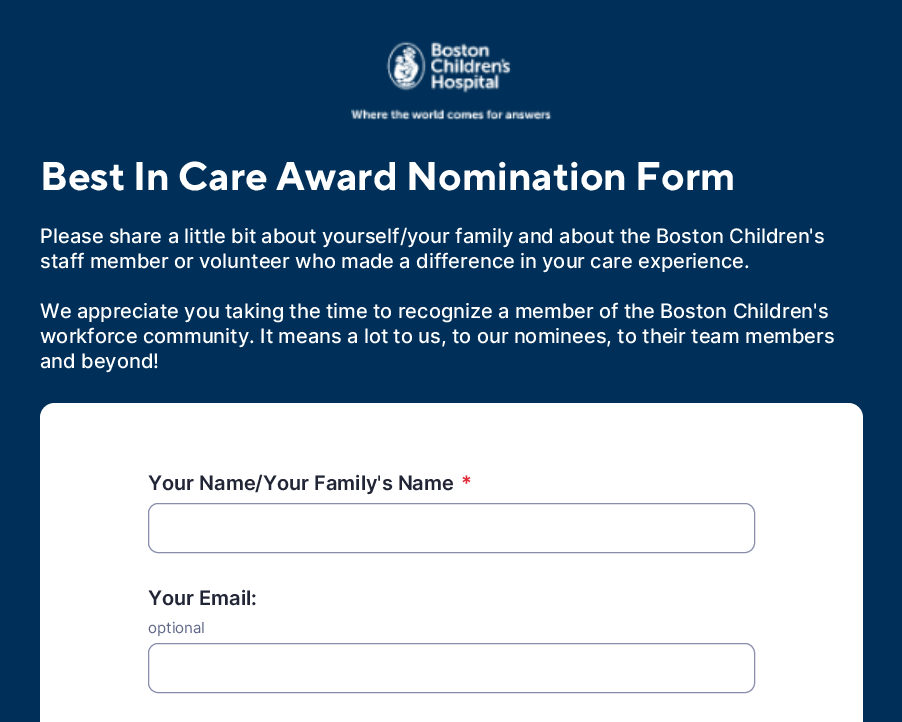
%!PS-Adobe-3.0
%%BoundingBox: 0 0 902 722
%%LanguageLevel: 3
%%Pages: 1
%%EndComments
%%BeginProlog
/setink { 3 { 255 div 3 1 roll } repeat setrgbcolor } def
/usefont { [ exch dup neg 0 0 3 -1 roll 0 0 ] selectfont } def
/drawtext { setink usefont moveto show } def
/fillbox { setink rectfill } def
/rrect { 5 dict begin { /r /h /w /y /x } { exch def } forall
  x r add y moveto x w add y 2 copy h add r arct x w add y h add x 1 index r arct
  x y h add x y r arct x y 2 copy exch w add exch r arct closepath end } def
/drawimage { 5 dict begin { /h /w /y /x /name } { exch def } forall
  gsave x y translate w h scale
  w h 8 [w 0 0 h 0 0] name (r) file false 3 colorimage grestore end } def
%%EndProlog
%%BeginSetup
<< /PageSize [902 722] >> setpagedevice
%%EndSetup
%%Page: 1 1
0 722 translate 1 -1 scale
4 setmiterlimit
0 0 902 722 0 48 89 fillbox
(assets/img1.rgb) 351 41 201 79 drawimage
(Best In Care Award Nomination Form) 40 190 /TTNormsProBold-Bold 40 255 255 255 drawtext
(Please share a little bit about yourself/your family and about the Boston Children's) 40 243 /Inter-Medium 20 255 255 255 drawtext
(staff member or volunteer who made a difference in your care experience.) 40 268 /Inter-Medium 20 255 255 255 drawtext
(We appreciate you taking the time to recognize a member of the Boston Children's) 40 318 /Inter-Medium 20 255 255 255 drawtext
(workforce community. It means a lot to us, to our nominees, to their team members) 40 343 /Inter-Medium 20 255 255 255 drawtext
(and beyond!) 40 368 /Inter-Medium 20 255 255 255 drawtext
55 403 moveto 848 403 lineto 856.5 403 863 409.5 863 418 curveto 863 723 lineto 40 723 lineto 40 418 lineto 40 409.5 46.5 403 55 403 curveto closepath fill
(Your Name/Your Family's Name) 148 490 /Inter-SemiBold 20 33 37 54 drawtext
(*) 461 490 /Inter-SemiBold 20 223 42 54 drawtext
135 141 171 setink
148.5 503.5 606 49 9.5 rrect stroke
(Your Email:) 148 605 /Inter-SemiBold 20 33 37 54 drawtext
(optional) 148 633 /Inter-Regular 15 95 103 134 drawtext
135 141 171 setink
148.5 643.5 606 49 9.5 rrect stroke
showpage
%%EOF
